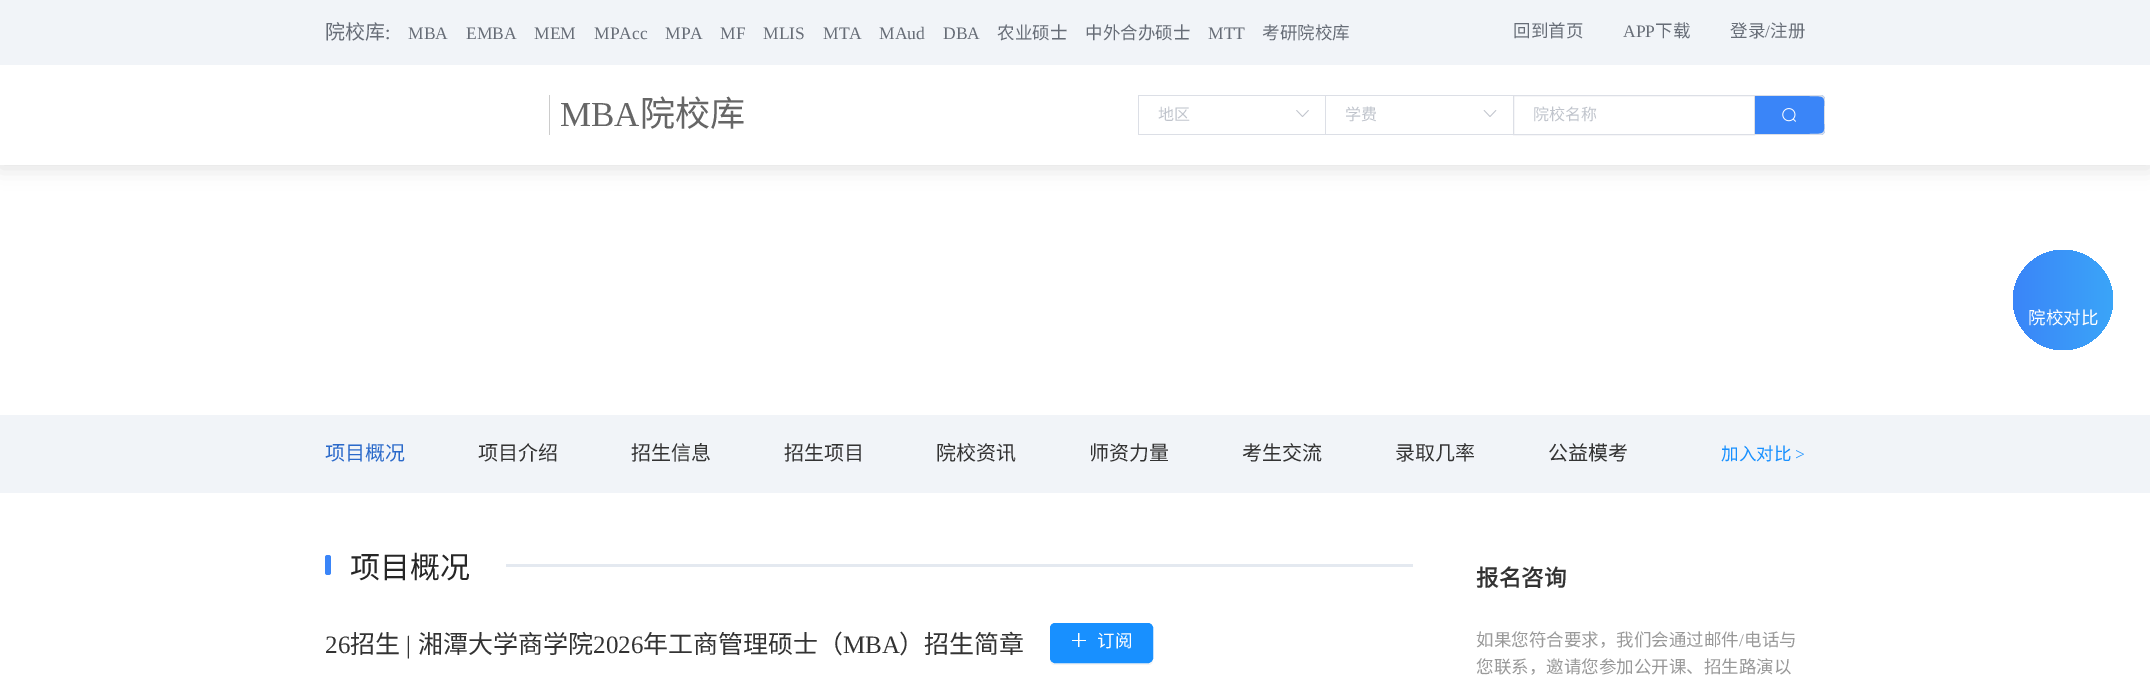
%!PS-Adobe-3.0
%%BoundingBox: 0 0 2150 685
%%LanguageLevel: 3
%%Pages: 1
%%EndComments
%%BeginProlog
/setink { 3 { 255 div 3 1 roll } repeat setrgbcolor } def
/usefont { [ exch dup neg 0 0 3 -1 roll 0 0 ] selectfont } def
/drawtext { setink usefont moveto show } def
/fillbox { setink rectfill } def
/setalpha { dup .setfillconstantalpha .setstrokeconstantalpha } def
/disc { newpath 0 360 arc closepath } def
/rrect { 5 dict begin { /r /h /w /y /x } { exch def } forall
  x r add y moveto x w add y 2 copy h add r arct x w add y h add x 1 index r arct
  x y h add x y r arct x y 2 copy exch w add exch r arct closepath end } def
/softshadow { 12 dict begin { /a /b /q /h /w /y /x } { exch def } forall gsave /was 0 def
  9 -2 -9 { dup b mul 4 div /e exch def 1 sub .425 mul 2.718 exch exp 1 add a .99 .min exch div /now exch def
    1 1 now sub 1 was sub div sub setalpha /was now def
    w h .min e 2 mul add 0 gt { x e sub y e sub w e 2 mul add h e 2 mul add
      q e add b .6 mul add w h .min 2 div e add .min 0 .max rrect fill } if } for grestore end } def
/drawimage { 5 dict begin { /h /w /y /x /name } { exch def } forall
  gsave x y translate w h scale
  w h 8 [w 0 0 h 0 0] name (r) file false 3 colorimage grestore end } def
%%EndProlog
%%BeginSetup
<< /PageSize [2150 685] /PageUsesTransparency true >> setpagedevice
%%EndSetup
%%Page: 1 1
0 .pushpdf14devicefilter
0 685 translate 1 -1 scale
4 setmiterlimit
0 0 2150 685 255 255 255 fillbox
0 0 0 setink
0 3 2150 165 0 10 0.12 softshadow
0 0 2150 65 241 244 248 fillbox
(院校库) 325 39 /NotoSansCJKSC-Regular 20 103 109 119 drawtext
(:) 385 39 /LiberationSerif-Regular 20 103 109 119 drawtext
(MBA) 408 39 /LiberationSerif-Regular 17.5 103 109 119 drawtext
(EMBA) 466 39 /LiberationSerif-Regular 17.5 103 109 119 drawtext
(MEM) 534 39 /LiberationSerif-Regular 17.5 103 109 119 drawtext
(MPAcc) 594 39 /LiberationSerif-Regular 17.5 103 109 119 drawtext
(MPA) 665 39 /LiberationSerif-Regular 17.5 103 109 119 drawtext
(MF) 720 39 /LiberationSerif-Regular 17.5 103 109 119 drawtext
(MLIS) 763 39 /LiberationSerif-Regular 17.5 103 109 119 drawtext
(MTA) 823 39 /LiberationSerif-Regular 17.5 103 109 119 drawtext
(MAud) 879 39 /LiberationSerif-Regular 17.5 103 109 119 drawtext
(DBA) 943 39 /LiberationSerif-Regular 17.5 103 109 119 drawtext
(农业硕士) 997 39 /NotoSansCJKSC-Regular 17.5 103 109 119 drawtext
(中外合办硕士) 1085 39 /NotoSansCJKSC-Regular 17.5 103 109 119 drawtext
(MTT) 1208 39 /LiberationSerif-Regular 17.5 103 109 119 drawtext
(考研院校库) 1262 39 /NotoSansCJKSC-Regular 17.5 103 109 119 drawtext
(回到首页) 1513 37 /NotoSansCJKSC-Regular 17.5 103 109 119 drawtext
(APP) 1623 37 /LiberationSerif-Regular 17.5 103 109 119 drawtext
(下载) 1655 37 /NotoSansCJKSC-Regular 17.5 103 109 119 drawtext
(登录) 1730 37 /NotoSansCJKSC-Regular 17.5 103 109 119 drawtext
(/) 1765 37 /LiberationSerif-Regular 17.5 103 109 119 drawtext
(注册) 1770 37 /NotoSansCJKSC-Regular 17.5 103 109 119 drawtext
0 65 2150 100 255 255 255 fillbox
549 95 1 40 204 204 204 fillbox
(MBA) 560 126 /LiberationSerif-Regular 35 102 102 102 drawtext
(院校库) 640 126 /NotoSansCJKSC-Regular 35 102 102 102 drawtext
1138 95 375 1 220 223 230 fillbox
1138 134 375 1 220 223 230 fillbox
1138 95 1 40 220 223 230 fillbox
(地区) 1158 120 /NotoSansCJKSC-Regular 16 192 196 204 drawtext
(assets/img1.rgb) 1296 110 13 7 drawimage
1325 95 1 40 220 223 230 fillbox
(学费) 1345 120 /NotoSansCJKSC-Regular 16 192 196 204 drawtext
(assets/img2.rgb) 1483 110 14 7 drawimage
220 223 230 setink
1513.5 95.5 241 39 rectstroke
(院校名称) 1533 120 /NotoSansCJKSC-Regular 16 192 196 204 drawtext
58 133 248 setink
1755 95 moveto 1820 95 lineto 1823 95 1825 97 1825 100 curveto 1825 130 lineto 1825 133 1823 135 1820 135 curveto 1755 135 lineto closepath fill
220 223 230 setink
1755 95 moveto 1820 95 lineto 1823 95 1825 97 1825 100 curveto 1825 130 lineto 1825 133 1823 135 1820 135 curveto 1755 135 lineto closepath 1755 96 moveto 1809 96 lineto 1828 96 1824 96 1824 115 curveto 1824 134 1828 134 1809 134 curveto 1755 134 lineto closepath eofill
(assets/img3.rgb) 1782 108 14 14 drawimage
gsave 2063 300 50 disc clip newpath
<< /ShadingType 2 /ColorSpace /DeviceRGB /Coords [2013 300 2113 300] /Extend [true true] /Function << /FunctionType 2 /Domain [0 1] /C0 [0.227 0.522 0.973] /C1 [0.227 0.647 0.973] /N 1 >> >> shfill grestore
(院校对比) 2028 324 /NotoSansCJKSC-Regular 17.5 255 255 255 drawtext
0 415 2150 78 241 244 248 fillbox
(项目概况) 325 460 /NotoSansCJKSC-Regular 20 42 105 202 drawtext
(项目介绍) 478 460 /NotoSansCJKSC-Regular 20 51 51 51 drawtext
(招生信息) 631 460 /NotoSansCJKSC-Regular 20 51 51 51 drawtext
(招生项目) 784 460 /NotoSansCJKSC-Regular 20 51 51 51 drawtext
(院校资讯) 936 460 /NotoSansCJKSC-Regular 20 51 51 51 drawtext
(师资力量) 1089 460 /NotoSansCJKSC-Regular 20 51 51 51 drawtext
(考生交流) 1242 460 /NotoSansCJKSC-Regular 20 51 51 51 drawtext
(录取几率) 1395 460 /NotoSansCJKSC-Regular 20 51 51 51 drawtext
(公益模考) 1548 460 /NotoSansCJKSC-Regular 20 51 51 51 drawtext
(加入对比) 1721 460 /NotoSansCJKSC-Regular 17.5 24 144 255 drawtext
(>) 1795 460 /LiberationSerif-Regular 17.5 24 144 255 drawtext
58 133 248 setink
325 555 6 20 2.5 rrect fill
(项目概况) 350 578 /NotoSansCJKSC-Regular 30 38 38 38 drawtext
506 564 907 3 228 233 240 fillbox
(26) 325 653 /LiberationSerif-Regular 25 51 51 51 drawtext
(招生) 350 653 /NotoSansCJKSC-Regular 25 51 51 51 drawtext
(|) 406 653 /LiberationSerif-Regular 25 51 51 51 drawtext
(湘潭大学商学院) 418 653 /NotoSansCJKSC-Regular 25 51 51 51 drawtext
(2026) 593 653 /LiberationSerif-Regular 25 51 51 51 drawtext
(年工商管理硕士（) 643 653 /NotoSansCJKSC-Regular 25 51 51 51 drawtext
(MBA) 843 653 /LiberationSerif-Regular 25 51 51 51 drawtext
(）招生简章) 899 653 /NotoSansCJKSC-Regular 25 51 51 51 drawtext
244 244 244 setink
1050 658 moveto 1050 660 lineto 1050 663 1052 665 1055 665 curveto 1148 665 lineto 1151 665 1153 663 1153 660 curveto 1153 630 lineto 1152 628 lineto 1152 658 lineto 1152 660 1150 662 1148 662 curveto 1055 662 lineto 1052 662 1050 660 1050 658 curveto closepath fill
24 144 255 setink
1050.5 623.5 102 39 4.5 rrect gsave fill grestore
stroke
(assets/img4.rgb) 1072 633 14 14 drawimage
(订阅) 1097 647 /NotoSansCJKSC-Regular 17.5 255 255 255 drawtext
(报名咨询) 1476 586 /NotoSansCJKSC-Bold 22.5 51 51 51 drawtext
(如果您符合要求，我们会通过邮件) 1476 646 /NotoSansCJKSC-Regular 17.5 153 153 153 drawtext
(/) 1739 646 /LiberationSerif-Regular 17.5 153 153 153 drawtext
(电话与) 1744 646 /NotoSansCJKSC-Regular 17.5 153 153 153 drawtext
(您联系，邀请您参加公开课、招生路演以) 1476 673 /NotoSansCJKSC-Regular 17.5 153 153 153 drawtext
.poppdf14devicefilter showpage
%%EOF
